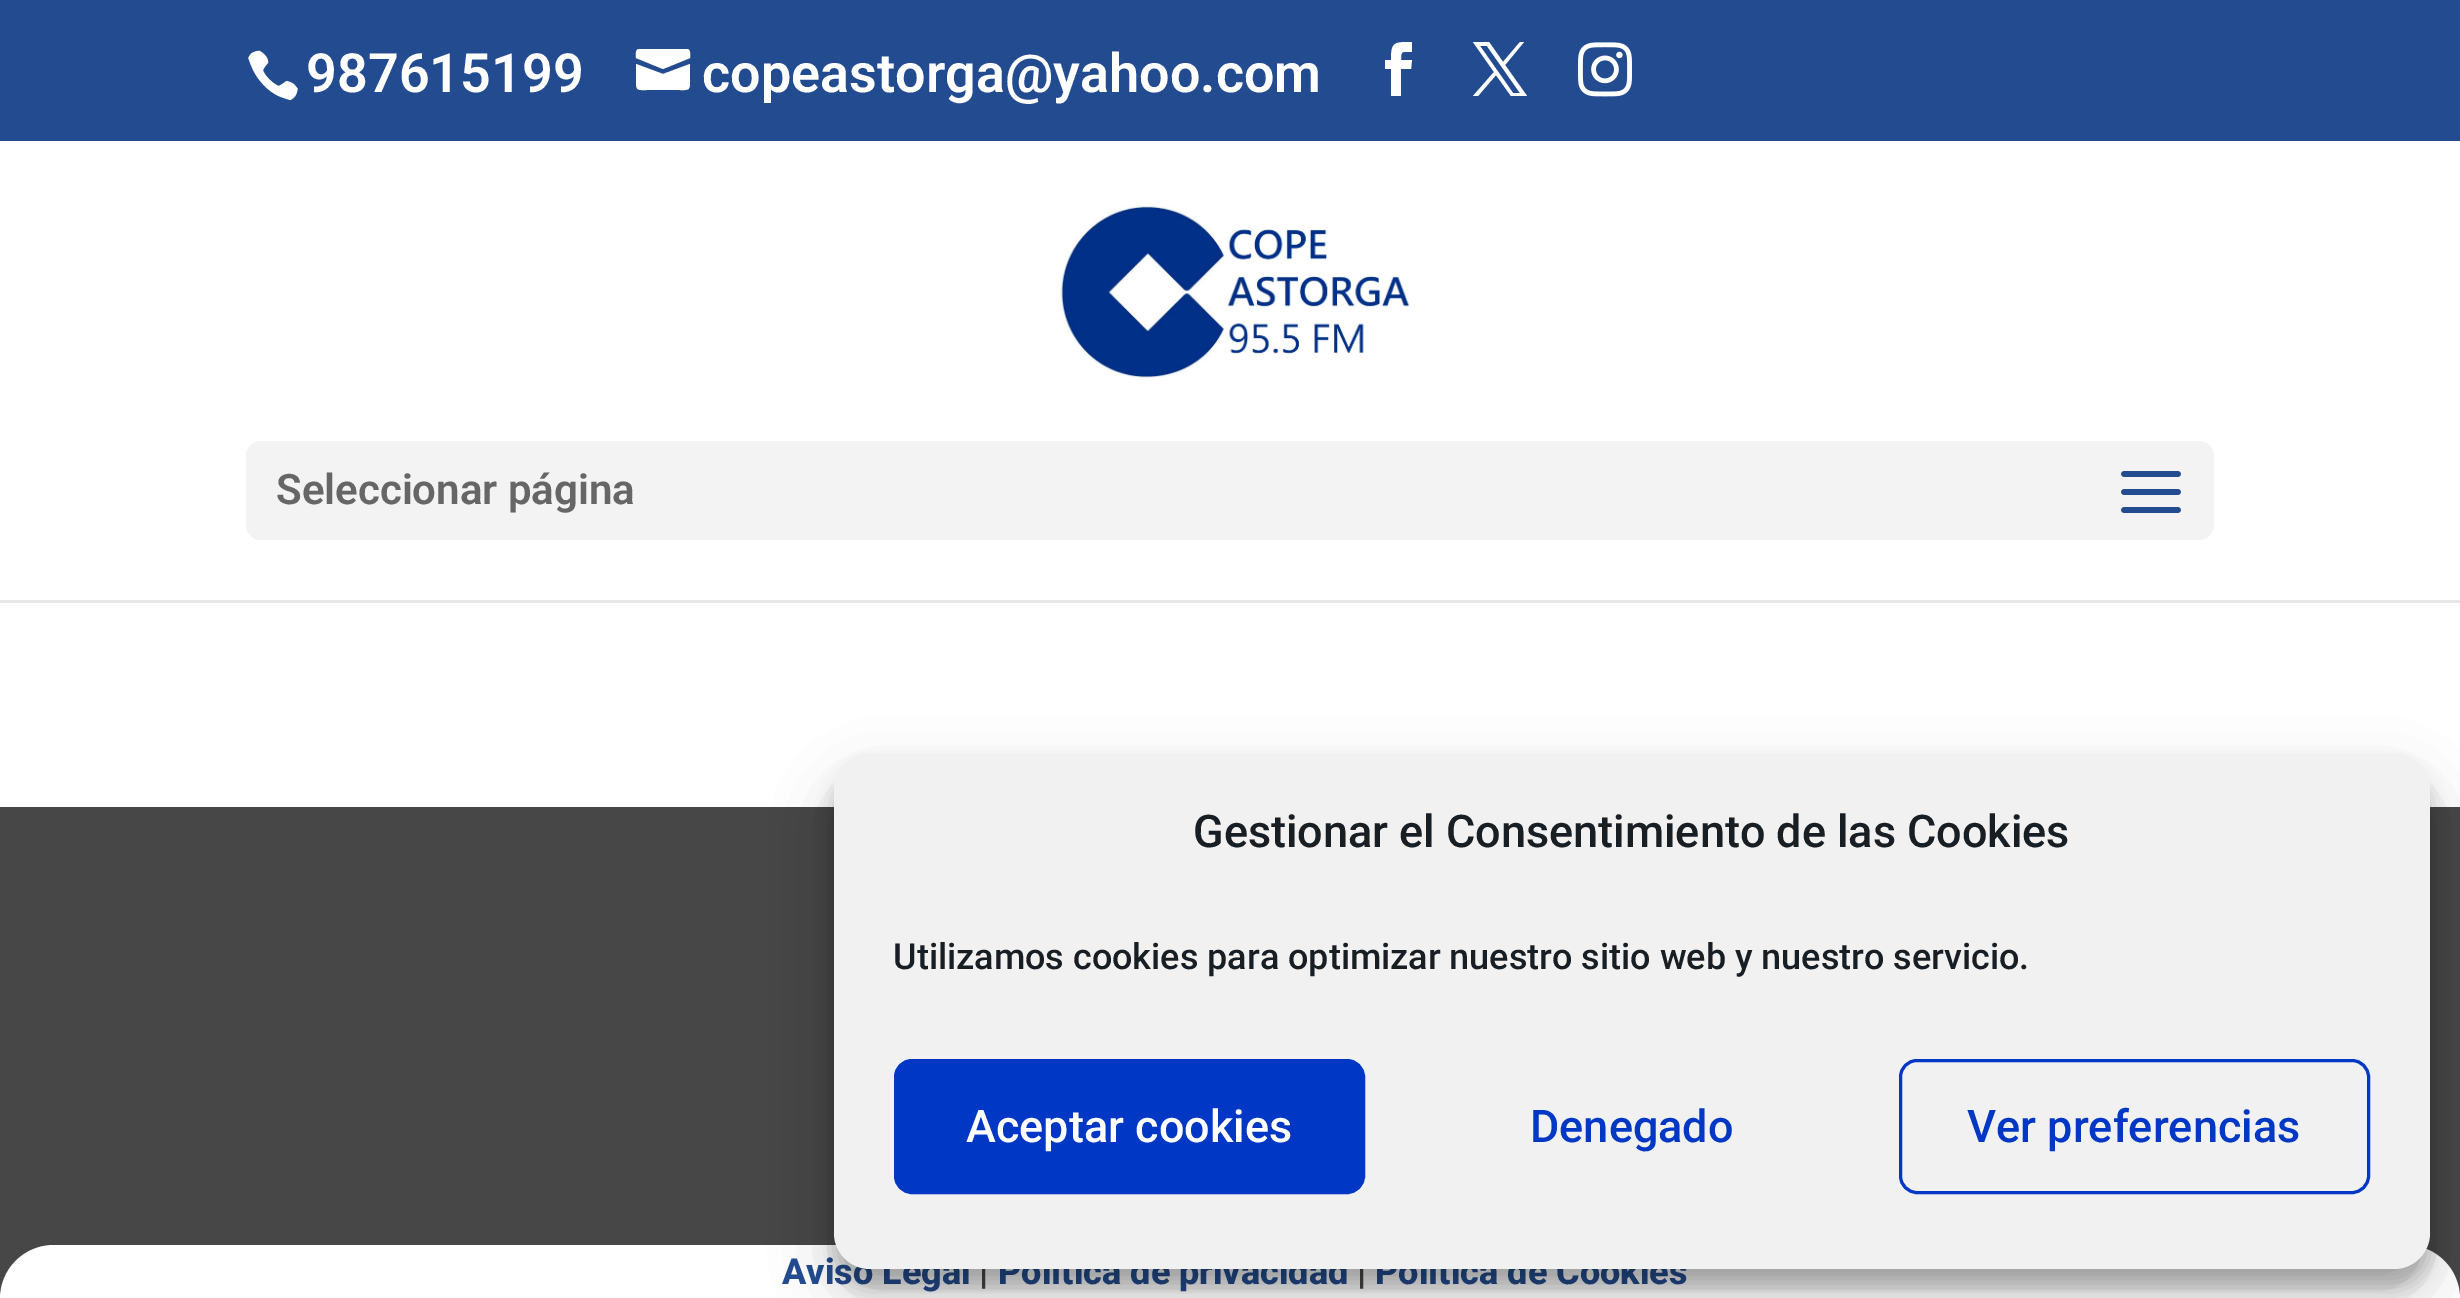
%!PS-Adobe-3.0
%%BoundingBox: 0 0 2460 1298
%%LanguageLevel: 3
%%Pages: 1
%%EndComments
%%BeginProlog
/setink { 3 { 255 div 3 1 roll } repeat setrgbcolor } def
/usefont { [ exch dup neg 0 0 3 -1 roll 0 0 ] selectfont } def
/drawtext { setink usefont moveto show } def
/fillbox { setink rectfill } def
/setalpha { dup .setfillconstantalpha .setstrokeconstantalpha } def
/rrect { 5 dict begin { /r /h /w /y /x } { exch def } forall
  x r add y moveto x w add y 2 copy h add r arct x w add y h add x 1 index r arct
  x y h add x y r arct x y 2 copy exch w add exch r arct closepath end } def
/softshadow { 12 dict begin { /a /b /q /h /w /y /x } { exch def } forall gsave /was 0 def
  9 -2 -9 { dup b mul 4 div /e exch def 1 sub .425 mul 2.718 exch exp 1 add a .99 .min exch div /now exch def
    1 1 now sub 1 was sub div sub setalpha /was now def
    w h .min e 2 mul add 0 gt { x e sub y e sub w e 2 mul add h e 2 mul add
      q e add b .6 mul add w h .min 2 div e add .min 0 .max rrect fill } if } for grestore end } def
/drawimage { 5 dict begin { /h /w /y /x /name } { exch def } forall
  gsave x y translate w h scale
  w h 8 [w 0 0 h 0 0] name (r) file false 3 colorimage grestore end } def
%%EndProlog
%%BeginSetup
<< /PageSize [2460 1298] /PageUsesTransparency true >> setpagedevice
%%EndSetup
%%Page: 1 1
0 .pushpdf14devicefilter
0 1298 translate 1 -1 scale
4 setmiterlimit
0 0 2460 1298 255 255 255 fillbox
0 0 2460 141 35 76 144 fillbox
(assets/img1.rgb) 248 50 50 51 drawimage
(987615199) 306 92 /Roboto-SemiBold 54 255 255 255 drawtext
(copeastorga@yahoo.com) 702 92 /Roboto-SemiBold 54 255 255 255 drawtext
687 49 moveto 639 49 lineto 635 49 636 55 636 58 curveto 663 69 lineto 690 58 lineto 690 55 691 49 687 49 curveto closepath 636 64 moveto 636 82 lineto 636 91 638 90 647 90 curveto 679 90 lineto 688 90 690 91 690 82 curveto 690 64 lineto 663 74 lineto closepath fill
1391 96 moveto 1401 96 lineto 1401 69 lineto 1411 69 lineto 1412 60 lineto 1401 60 lineto 1401 50 1402 52 1412 52 curveto 1412 42 lineto 1394 42 1391 42 1391 60 curveto 1385 60 lineto 1385 69 lineto 1391 69 lineto closepath fill
1473 42 moveto 1494 72 lineto 1473 96 lineto 1478 96 lineto 1496 75 lineto 1511 96 lineto 1527 96 lineto 1505 65 lineto 1524 42 lineto 1520 42 lineto 1503 62 lineto 1489 42 lineto closepath 1480 46 moveto 1487 46 lineto 1520 93 lineto 1513 93 lineto closepath fill
(assets/img2.rgb) 1578 42 54 55 drawimage
0 600 2460 3 230 230 230 fillbox
(assets/img3.rgb) 1060 205 350 173 drawimage
243 243 243 setink
246 441 1968 99 15 rrect fill
(Seleccionar página) 276 504 /Roboto-SemiBold 42 102 102 102 drawtext
(assets/img4.rgb) 2121 471 60 42 drawimage
0 807 2460 491 71 71 71 fillbox
255 255 255 setink
54 1245 moveto 2406 1245 lineto 2436 1245 2460 1269 2460 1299 curveto 0 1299 lineto 0 1269 24 1245 54 1245 curveto closepath fill
(Aviso Legal) 782 1284 /Roboto-ExtraBold 36 35 76 144 drawtext
(|) 979 1284 /Roboto-ExtraBold 36 71 71 71 drawtext
(Política de privacidad) 998 1284 /Roboto-ExtraBold 36 35 76 144 drawtext
(|) 1357 1284 /Roboto-ExtraBold 36 71 71 71 drawtext
(Política de Cookies) 1375 1284 /Roboto-ExtraBold 36 35 76 144 drawtext
0 0 0 setink
834 771 1596 516 36 9 0.23 softshadow
834 783 1596 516 36 30 0.19 softshadow
241 241 241 setink
834 753 1596 516 36 rrect fill
(Gestionar el Consentimiento de las Cookies) 1193 847 /Roboto-Medium 45 25 30 35 drawtext
(Utilizamos cookies para optimizar nuestro sitio web y nuestro servicio.) 893 969 /Roboto-Medium 36 25 30 35 drawtext
0 55 196 setink
895.5 1060.5 468 132 16.5 rrect gsave fill grestore
3 setlinewidth
stroke
(Aceptar cookies) 966 1142 /Roboto-Medium 45 255 255 255 drawtext
(Denegado) 1530 1142 /Roboto-Medium 45 0 55 196 drawtext
1900.5 1060.5 468 132 16.5 rrect stroke
(Ver preferencias) 1967 1142 /Roboto-Medium 45 0 55 196 drawtext
.poppdf14devicefilter showpage
%%EOF
